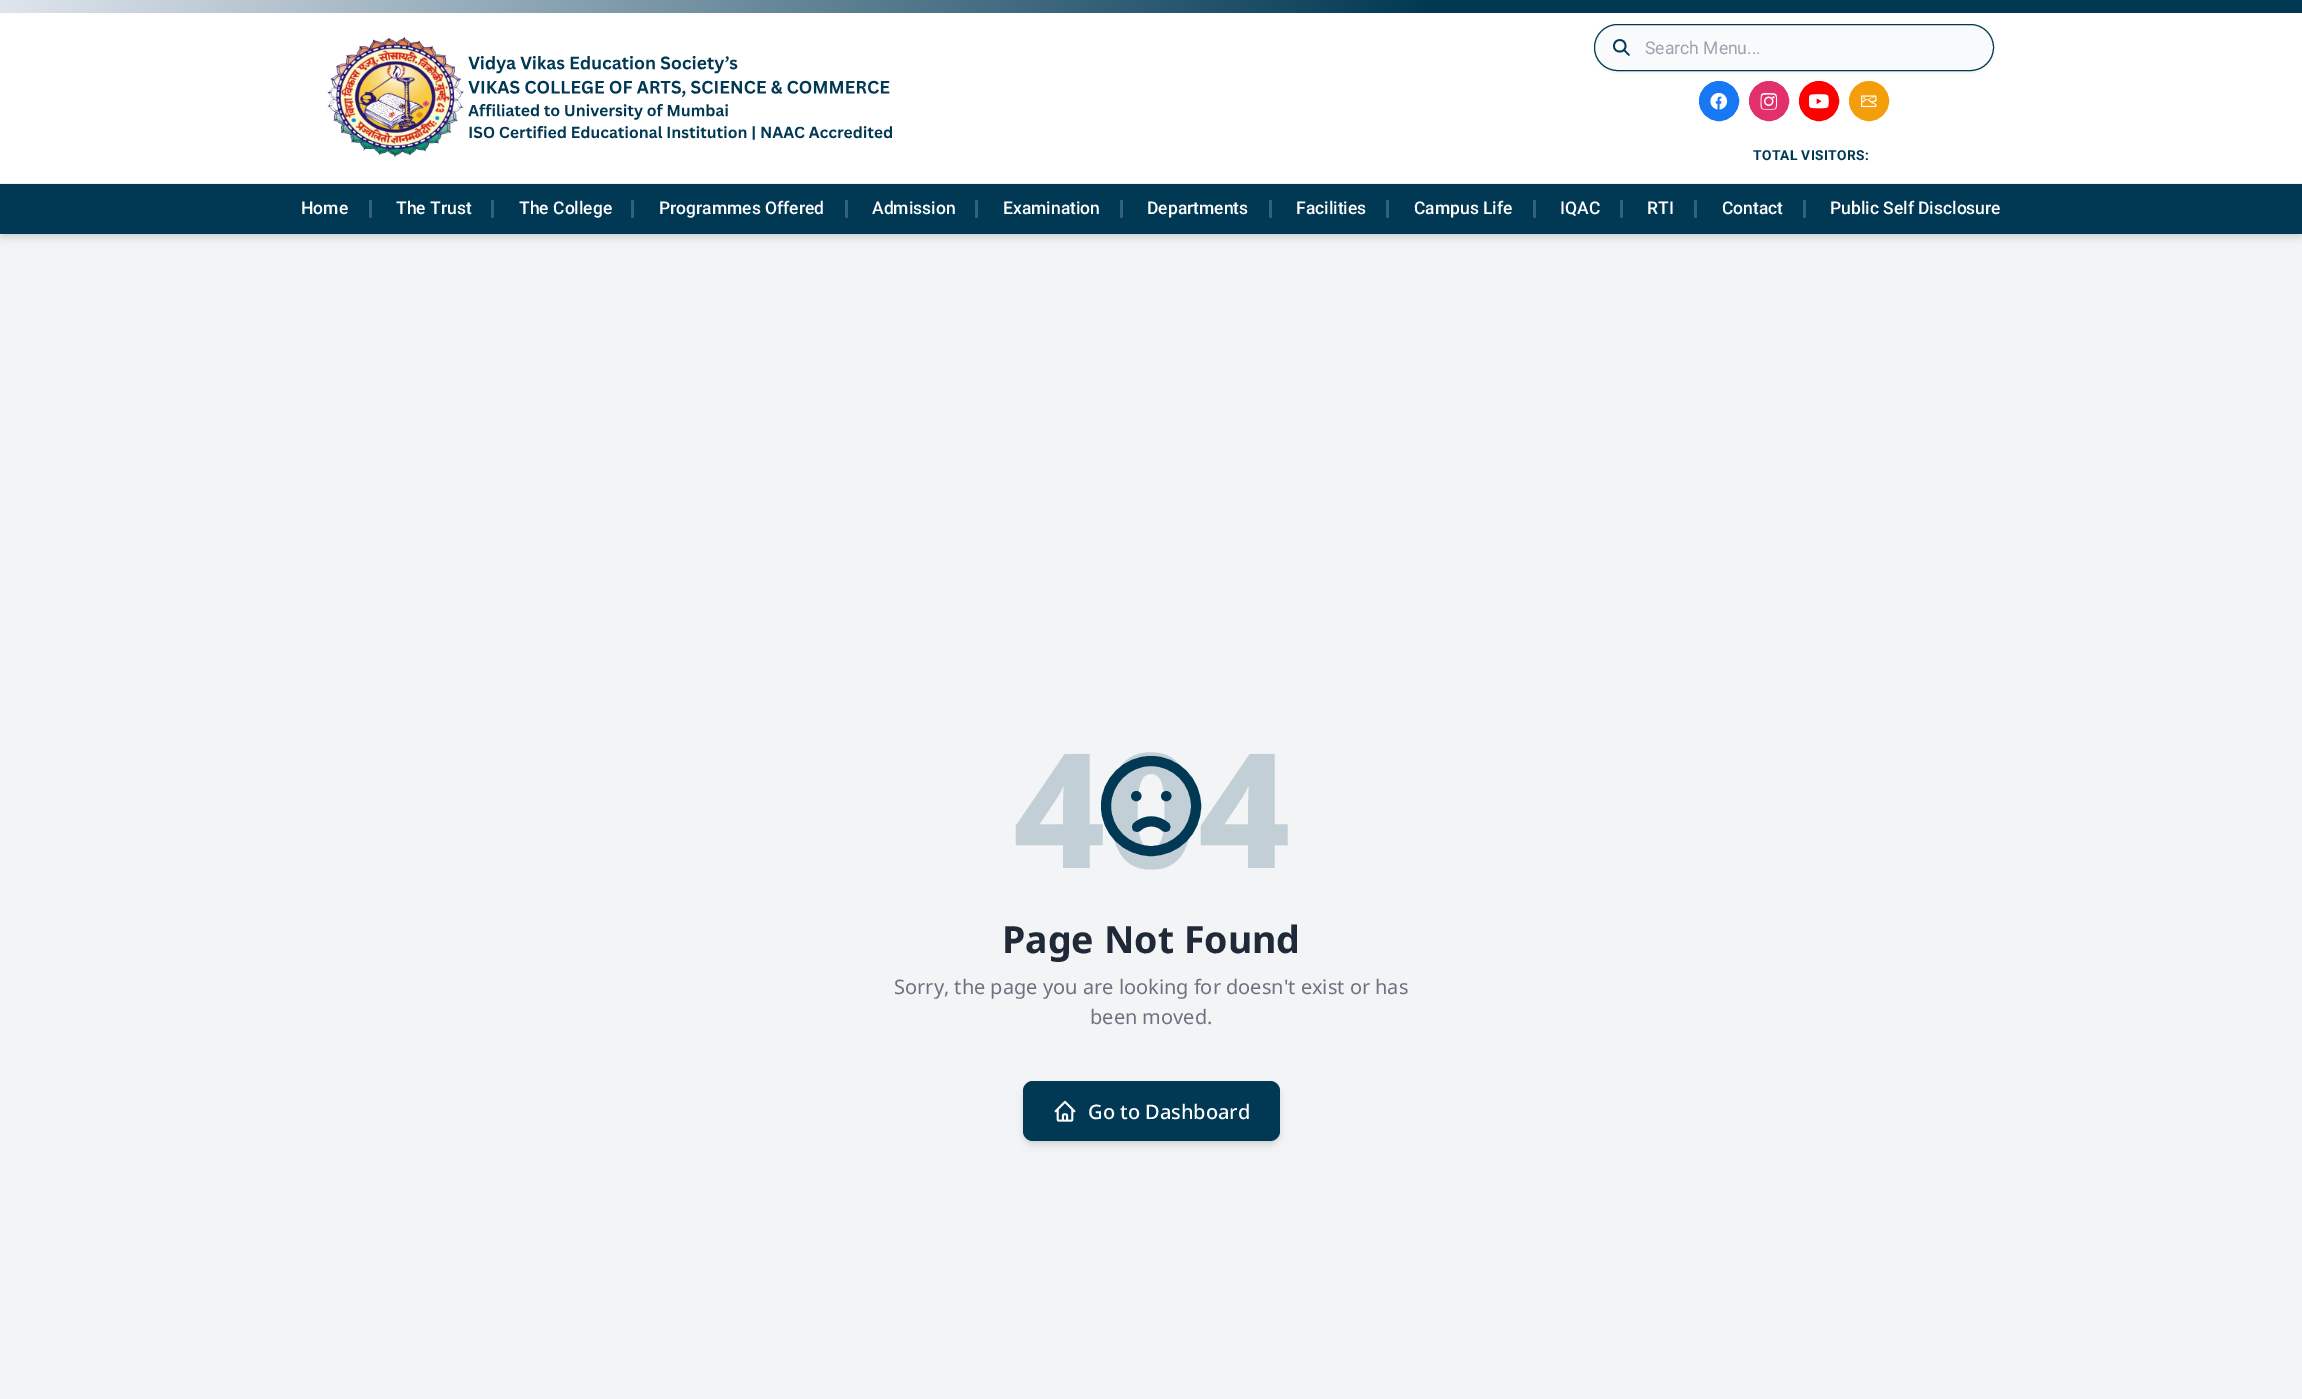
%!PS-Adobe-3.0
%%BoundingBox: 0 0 2302 1399
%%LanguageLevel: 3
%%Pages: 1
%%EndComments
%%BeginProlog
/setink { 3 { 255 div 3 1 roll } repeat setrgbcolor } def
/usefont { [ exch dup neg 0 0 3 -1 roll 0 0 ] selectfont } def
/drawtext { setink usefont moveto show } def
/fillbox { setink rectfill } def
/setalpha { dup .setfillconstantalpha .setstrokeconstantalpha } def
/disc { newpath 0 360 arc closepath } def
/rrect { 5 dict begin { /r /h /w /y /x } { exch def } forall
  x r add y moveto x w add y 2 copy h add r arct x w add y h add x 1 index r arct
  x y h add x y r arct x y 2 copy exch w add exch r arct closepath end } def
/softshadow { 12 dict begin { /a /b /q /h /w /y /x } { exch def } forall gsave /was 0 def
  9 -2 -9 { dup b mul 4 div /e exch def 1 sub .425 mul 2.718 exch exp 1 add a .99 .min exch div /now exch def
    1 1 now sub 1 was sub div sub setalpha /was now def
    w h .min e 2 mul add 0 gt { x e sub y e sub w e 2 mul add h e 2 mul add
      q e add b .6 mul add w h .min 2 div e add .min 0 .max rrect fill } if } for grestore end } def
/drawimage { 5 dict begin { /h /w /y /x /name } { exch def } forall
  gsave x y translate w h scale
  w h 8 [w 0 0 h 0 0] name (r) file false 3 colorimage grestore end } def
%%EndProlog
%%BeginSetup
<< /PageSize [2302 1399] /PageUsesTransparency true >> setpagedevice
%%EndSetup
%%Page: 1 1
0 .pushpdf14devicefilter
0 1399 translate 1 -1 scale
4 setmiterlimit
0 0 2302 1399 243 244 246 fillbox
gsave 0 0 moveto 2302 0 lineto 2302 13 lineto 0 13 lineto closepath clip newpath
<< /ShadingType 2 /ColorSpace /DeviceRGB /Coords [0 -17 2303 -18] /Extend [true true] /Function << /FunctionType 3 /Domain [0 1] /Functions [<< /FunctionType 2 /Domain [0 1] /C0 [0.878 0.898 0.929] /C1 [0.004 0.224 0.329] /N 1 >> << /FunctionType 2 /Domain [0 1] /C0 [0.004 0.224 0.329] /C1 [0.004 0.224 0.329] /N 1 >>] /Bounds [0.62] /Encode [0 1 0 1] >> >> shfill grestore
0 0 0 setink
3 189 2297 45 0 2.5 0.1 softshadow
1 190 2300 48 0 4 0.1 softshadow
0 13 2302 170 255 255 255 fillbox
(assets/img1.rgb) 327 36 565 122 drawimage
0 0 0 setink
1594 25 400 48 24 1 0.05 softshadow
249 250 251 setink
1594.5 24.5 399 46 23 rrect gsave fill grestore
1 57 84 setink
stroke
1.7 setlinewidth
1 setlinecap
1 setlinejoin
1629 55 moveto 1624 50 lineto 1625.5 46 moveto 1625.5 53.5 1614 53.5 1614 46 curveto 1614 38 1625.5 38 1625.5 46 curveto closepath stroke
(Search Menu...) 1645 54 /Roboto-Regular 17.5 156 163 175 drawtext
24 119 242 setink
1719 101 19.5 disc gsave fill grestore
1 setlinewidth
0 setlinecap
0 setlinejoin
stroke
(assets/img2.rgb) 1710 92 18 18 drawimage
225 48 108 setink
1769 101 19.5 disc gsave fill grestore
stroke
(assets/img3.rgb) 1760 93 18 17 drawimage
255 0 0 setink
1819 101 19.5 disc gsave fill grestore
stroke
(assets/img4.rgb) 1809 94 20 15 drawimage
245 158 11 setink
1869 101 19.5 disc gsave fill grestore
stroke
(assets/img5.rgb) 1861 95 16 13 drawimage
/Roboto-Bold 13.75 usefont
1 57 84 setink
1753 160 moveto 0.3 0 (TOTAL VISITORS:) ashow
0 184 2302 50 1 57 84 fillbox
(Home) 301 214 /Roboto-Medium 17.5 255 255 255 drawtext
52 97 118 setink
369 200 3 18 1.5 rrect fill
(The Trust) 396 214 /Roboto-Medium 17.5 255 255 255 drawtext
52 97 118 setink
491 200 3 18 1.5 rrect fill
(The College) 519 214 /Roboto-Medium 17.5 255 255 255 drawtext
52 97 118 setink
631 200 3 18 1.5 rrect fill
(Programmes Offered) 659 214 /Roboto-Medium 17.5 255 255 255 drawtext
52 97 118 setink
845 200 3 18 1.5 rrect fill
(Admission) 872 214 /Roboto-Medium 17.5 255 255 255 drawtext
52 97 118 setink
975 200 3 18 1.5 rrect fill
(Examination) 1003 214 /Roboto-Medium 17.5 255 255 255 drawtext
52 97 118 setink
1120 200 3 18 1.5 rrect fill
(Departments) 1147 214 /Roboto-Medium 17.5 255 255 255 drawtext
52 97 118 setink
1269 200 3 18 1.5 rrect fill
(Facilities) 1296 214 /Roboto-Medium 17.5 255 255 255 drawtext
52 97 118 setink
1386 200 3 18 1.5 rrect fill
(Campus Life) 1414 214 /Roboto-Medium 17.5 255 255 255 drawtext
52 97 118 setink
1533 200 3 18 1.5 rrect fill
(IQAC) 1560 214 /Roboto-Medium 17.5 255 255 255 drawtext
52 97 118 setink
1620 200 3 18 1.5 rrect fill
(RTI) 1647 214 /Roboto-Medium 17.5 255 255 255 drawtext
52 97 118 setink
1694 200 3 18 1.5 rrect fill
(Contact) 1722 214 /Roboto-Medium 17.5 255 255 255 drawtext
52 97 118 setink
1803 200 3 18 1.5 rrect fill
(Public Self Disclosure) 1830 214 /Roboto-Medium 17.5 255 255 255 drawtext
(404) 1013 868 /NotoSans-ExtraBold 160 195 207 214 drawtext
1 57 84 setink
10 setlinewidth
1 setlinecap
1 setlinejoin
1137 827 moveto 1145 819.5 1157.5 819.5 1165.5 827 curveto 1136 796 moveto 1136.5 796 lineto 1166 796 moveto 1166.5 796 lineto 1196 806 moveto 1196 831 1176 851 1151 851 curveto 1126.5 851 1106 831 1106 806 curveto 1106 781.5 1126.5 761 1151 761 curveto 1176 761 1196 781.5 1196 806 curveto closepath stroke
(Page Not Found) 1002 953 /NotoSans-Bold 37.5 31 41 55 drawtext
(Sorry, the page you are looking for doesn't exist or has) 894 994 /NotoSans-Regular 20 107 114 128 drawtext
(been moved.) 1090 1024 /NotoSans-Regular 20 107 114 128 drawtext
0 0 0 setink
1025 1086 253 55 8 2.5 0.1 softshadow
1024 1088 255 57 9 4 0.1 softshadow
1 57 84 setink
1023 1081 257 60 10 rrect fill
(assets/img6.rgb) 1054 1100 22 22 drawimage
(Go to Dashboard) 1088 1119 /NotoSans-Medium 20 255 255 255 drawtext
.poppdf14devicefilter showpage
%%EOF
